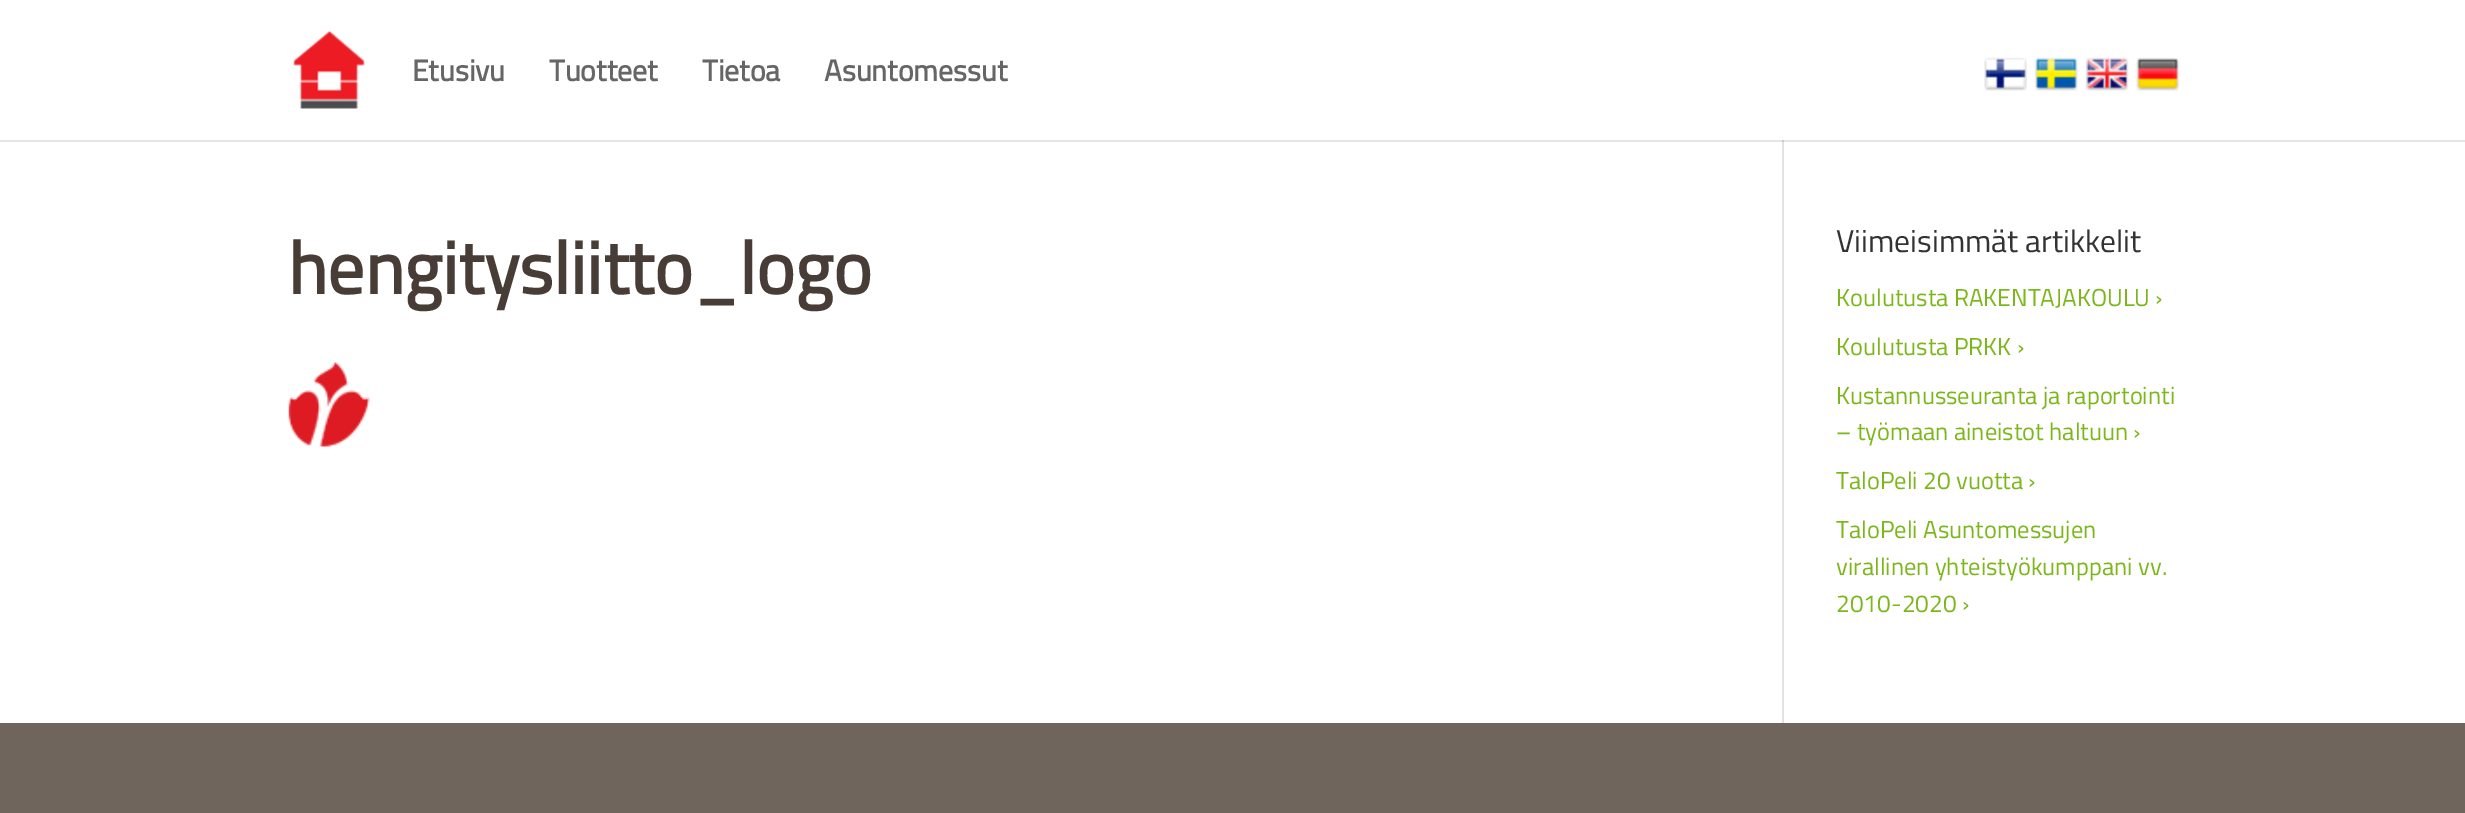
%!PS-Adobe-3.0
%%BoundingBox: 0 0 2465 813
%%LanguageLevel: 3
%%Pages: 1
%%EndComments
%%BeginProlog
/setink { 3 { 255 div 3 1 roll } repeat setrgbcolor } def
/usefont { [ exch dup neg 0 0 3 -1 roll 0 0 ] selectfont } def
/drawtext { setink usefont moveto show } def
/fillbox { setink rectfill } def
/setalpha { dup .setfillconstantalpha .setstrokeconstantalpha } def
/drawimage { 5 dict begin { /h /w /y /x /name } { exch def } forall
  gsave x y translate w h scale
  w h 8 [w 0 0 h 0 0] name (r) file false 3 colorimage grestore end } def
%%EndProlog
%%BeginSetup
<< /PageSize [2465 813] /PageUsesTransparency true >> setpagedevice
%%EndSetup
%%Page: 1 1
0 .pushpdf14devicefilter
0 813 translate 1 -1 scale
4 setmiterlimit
0 0 2465 813 255 255 255 fillbox
1782 140 2 583 226 226 226 fillbox
0.1 setalpha
0 0 0 setink
0 140 moveto 0 142 lineto 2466 142 lineto 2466 2 lineto 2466 140 lineto closepath fill
1 setalpha
(assets/img1.rgb) 293 31 72 78 drawimage
(Etusivu) 412 81 /TitilliumWeb-Bold 29.75 102 102 102 drawtext
(Tuotteet) 549 81 /TitilliumWeb-Bold 29.75 102 102 102 drawtext
(Tietoa) 702 81 /TitilliumWeb-Bold 29.75 102 102 102 drawtext
(Asuntomessut) 824 81 /TitilliumWeb-Bold 29.75 102 102 102 drawtext
(assets/img2.rgb) 1984 57 43 34 drawimage
(assets/img3.rgb) 2034 57 44 34 drawimage
(assets/img4.rgb) 2085 57 44 34 drawimage
(assets/img5.rgb) 2136 57 44 34 drawimage
(hengitysliitto_logo) 288 294 /TitilliumWeb-Bold 73.5 71 60 54 drawtext
(assets/img6.rgb) 288 362 82 85 drawimage
(Viimeisimmät artikkelit) 1836 252 /TitilliumWeb-Regular 31.5 51 51 51 drawtext
(Koulutusta RAKENTAJAKOULU ›) 1836 306 /TitilliumWeb-Regular 24.5 123 183 27 drawtext
(Koulutusta PRKK ›) 1836 355 /TitilliumWeb-Regular 24.5 123 183 27 drawtext
(Kustannusseuranta ja raportointi) 1836 404 /TitilliumWeb-Regular 24.5 123 183 27 drawtext
(– työmaan aineistot haltuun ›) 1836 440 /TitilliumWeb-Regular 24.5 123 183 27 drawtext
(TaloPeli 20 vuotta ›) 1836 489 /TitilliumWeb-Regular 24.5 123 183 27 drawtext
(TaloPeli Asuntomessujen) 1836 538 /TitilliumWeb-Regular 24.5 123 183 27 drawtext
(virallinen yhteistyökumppani vv.) 1836 575 /TitilliumWeb-Regular 24.5 123 183 27 drawtext
(2010-2020 ›) 1836 612 /TitilliumWeb-Regular 24.5 123 183 27 drawtext
0 723 2465 90 112 101 93 fillbox
.poppdf14devicefilter showpage
%%EOF
